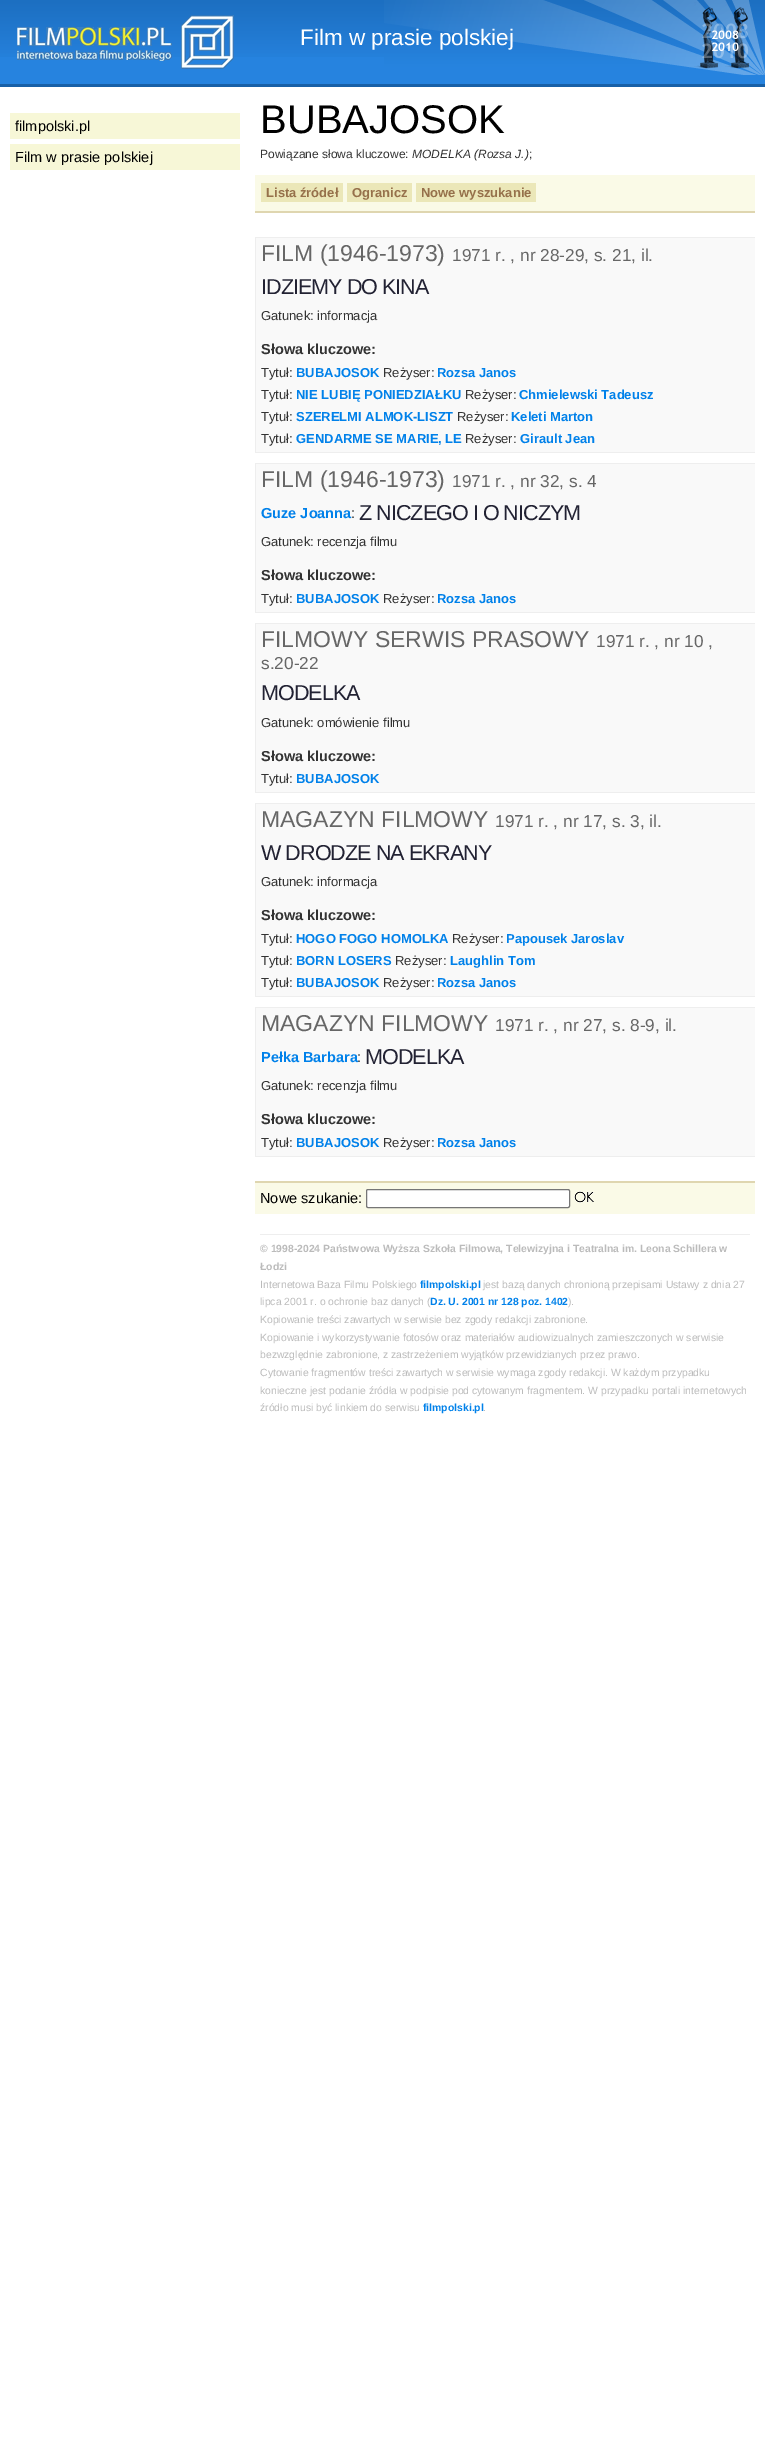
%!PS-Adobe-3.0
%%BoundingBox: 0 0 765 2439
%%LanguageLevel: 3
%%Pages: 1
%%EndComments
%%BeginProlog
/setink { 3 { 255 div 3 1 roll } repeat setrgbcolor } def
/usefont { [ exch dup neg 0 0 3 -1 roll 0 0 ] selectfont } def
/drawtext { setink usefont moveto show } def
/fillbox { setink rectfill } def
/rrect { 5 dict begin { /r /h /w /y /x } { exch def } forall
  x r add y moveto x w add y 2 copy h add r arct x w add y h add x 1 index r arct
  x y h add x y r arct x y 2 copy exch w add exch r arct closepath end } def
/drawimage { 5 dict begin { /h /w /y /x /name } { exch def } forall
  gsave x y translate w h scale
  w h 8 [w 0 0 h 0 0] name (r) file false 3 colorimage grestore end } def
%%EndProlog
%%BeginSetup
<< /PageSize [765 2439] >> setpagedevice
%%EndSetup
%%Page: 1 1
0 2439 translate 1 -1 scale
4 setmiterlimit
0 0 765 2439 255 255 255 fillbox
0 57 765 27 38 131 223 fillbox
(assets/img1.rgb) 0 0 384 57 drawimage
(assets/img2.rgb) 384 0 381 75 drawimage
(assets/img3.rgb) 17 15 217 54 drawimage
(Film w prasie polskiej) 300 45 /LiberationSans-Regular 22.5 255 255 255 drawtext
10 113 230 26 247 247 215 fillbox
(filmpolski.pl) 15 131 /LiberationSans-Regular 14.5 0 0 0 drawtext
10 144 230 26 247 247 215 fillbox
(Film w prasie polskiej) 15 162 /LiberationSans-Regular 14.5 0 0 0 drawtext
0 84 765 3 24 96 167 fillbox
(BUBAJOSOK) 260 133 /LiberationSans-Regular 40 0 0 0 drawtext
(Powiązane słowa kluczowe:) 260 158 /LiberationSans-Regular 12 51 51 51 drawtext
(MODELKA \(Rozsa J.\)) 412 158 /LiberationSans-Italic 12 51 51 51 drawtext
(;) 529 158 /LiberationSans-Regular 12 51 51 51 drawtext
255 175 500 36 250 250 231 fillbox
255 211 500 2 223 214 176 fillbox
261 183 82 19 235 231 184 fillbox
(Lista źródeł) 266 197 /LiberationSans-Bold 13 150 113 75 drawtext
347 183 65 19 235 231 184 fillbox
(Ogranicz) 352 197 /LiberationSans-Bold 13 150 113 75 drawtext
416 183 120 19 235 231 184 fillbox
(Nowe wyszukanie) 421 197 /LiberationSans-Bold 13 150 113 75 drawtext
256 238 499 214 249 249 249 fillbox
255 237 500 1 238 238 238 fillbox
255 452 500 1 238 238 238 fillbox
255 237 1 216 238 238 238 fillbox
(FILM \(1946-1973\)) 261 261 /LiberationSans-Regular 23 102 102 102 drawtext
(1971 r. , nr 28-29, s. 21, il.) 452 261 /LiberationSans-Regular 17.25 102 102 102 drawtext
/LiberationSans-Regular 21.6 usefont
34 34 51 setink
261 294 moveto -1 0 (IDZIEMY DO KINA) ashow
(Gatunek: informacja) 261 320 /LiberationSans-Regular 13 51 51 51 drawtext
(Słowa kluczowe:) 261 354 /LiberationSans-Bold 14.5 51 51 51 drawtext
(Tytuł:) 261 377 /LiberationSans-Regular 13 51 51 51 drawtext
(BUBAJOSOK) 296 377 /LiberationSans-Bold 13 0 129 234 drawtext
(Reżyser:) 383 377 /LiberationSans-Regular 13 51 51 51 drawtext
(Rozsa Janos) 437 377 /LiberationSans-Bold 13 0 129 234 drawtext
(Tytuł:) 261 399 /LiberationSans-Regular 13 51 51 51 drawtext
(NIE LUBIĘ PONIEDZIAŁKU) 296 399 /LiberationSans-Bold 13 0 129 234 drawtext
(Reżyser:) 465 399 /LiberationSans-Regular 13 51 51 51 drawtext
(Chmielewski Tadeusz) 519 399 /LiberationSans-Bold 13 0 129 234 drawtext
(Tytuł:) 261 421 /LiberationSans-Regular 13 51 51 51 drawtext
(SZERELMI ALMOK-LISZT) 296 421 /LiberationSans-Bold 13 0 129 234 drawtext
(Reżyser:) 457 421 /LiberationSans-Regular 13 51 51 51 drawtext
(Keleti Marton) 511 421 /LiberationSans-Bold 13 0 129 234 drawtext
(Tytuł:) 261 443 /LiberationSans-Regular 13 51 51 51 drawtext
(GENDARME SE MARIE, LE) 296 443 /LiberationSans-Bold 13 0 129 234 drawtext
(Reżyser:) 465 443 /LiberationSans-Regular 13 51 51 51 drawtext
(Girault Jean) 520 443 /LiberationSans-Bold 13 0 129 234 drawtext
256 464 499 148 249 249 249 fillbox
255 463 500 1 238 238 238 fillbox
255 612 500 1 238 238 238 fillbox
255 463 1 150 238 238 238 fillbox
(FILM \(1946-1973\)) 261 487 /LiberationSans-Regular 23 102 102 102 drawtext
(1971 r. , nr 32, s. 4) 452 487 /LiberationSans-Regular 17.25 102 102 102 drawtext
(Guze Joanna) 261 518 /LiberationSans-Bold 14.5 0 129 234 drawtext
(:) 351 518 /LiberationSans-Regular 14.5 51 51 51 drawtext
/LiberationSans-Regular 21.6 usefont
34 34 51 setink
359 520 moveto -1 0 (Z NICZEGO I O NICZYM) ashow
(Gatunek: recenzja filmu) 261 546 /LiberationSans-Regular 13 51 51 51 drawtext
(Słowa kluczowe:) 261 580 /LiberationSans-Bold 14.5 51 51 51 drawtext
(Tytuł:) 261 603 /LiberationSans-Regular 13 51 51 51 drawtext
(BUBAJOSOK) 296 603 /LiberationSans-Bold 13 0 129 234 drawtext
(Reżyser:) 383 603 /LiberationSans-Regular 13 51 51 51 drawtext
(Rozsa Janos) 437 603 /LiberationSans-Bold 13 0 129 234 drawtext
256 624 499 168 249 249 249 fillbox
255 623 500 1 238 238 238 fillbox
255 792 500 1 238 238 238 fillbox
255 623 1 170 238 238 238 fillbox
(FILMOWY SERWIS PRASOWY) 261 647 /LiberationSans-Regular 23 102 102 102 drawtext
(1971 r. , nr 10 ,) 596 647 /LiberationSans-Regular 17.25 102 102 102 drawtext
(s.20-22) 261 669 /LiberationSans-Regular 17.25 102 102 102 drawtext
/LiberationSans-Regular 21.6 usefont
34 34 51 setink
261 700 moveto -1 0 (MODELKA) ashow
(Gatunek: omówienie filmu) 261 727 /LiberationSans-Regular 13 51 51 51 drawtext
(Słowa kluczowe:) 261 761 /LiberationSans-Bold 14.5 51 51 51 drawtext
(Tytuł:) 261 783 /LiberationSans-Regular 13 51 51 51 drawtext
(BUBAJOSOK) 296 783 /LiberationSans-Bold 13 0 129 234 drawtext
256 804 499 192 249 249 249 fillbox
255 803 500 1 238 238 238 fillbox
255 996 500 1 238 238 238 fillbox
255 803 1 194 238 238 238 fillbox
(MAGAZYN FILMOWY) 261 827 /LiberationSans-Regular 23 102 102 102 drawtext
(1971 r. , nr 17, s. 3, il.) 495 827 /LiberationSans-Regular 17.25 102 102 102 drawtext
/LiberationSans-Regular 21.6 usefont
34 34 51 setink
261 860 moveto -1 0 (W DRODZE NA EKRANY) ashow
(Gatunek: informacja) 261 886 /LiberationSans-Regular 13 51 51 51 drawtext
(Słowa kluczowe:) 261 920 /LiberationSans-Bold 14.5 51 51 51 drawtext
(Tytuł:) 261 943 /LiberationSans-Regular 13 51 51 51 drawtext
(HOGO FOGO HOMOLKA) 296 943 /LiberationSans-Bold 13 0 129 234 drawtext
(Reżyser:) 452 943 /LiberationSans-Regular 13 51 51 51 drawtext
(Papousek Jaroslav) 506 943 /LiberationSans-Bold 13 0 129 234 drawtext
(Tytuł:) 261 965 /LiberationSans-Regular 13 51 51 51 drawtext
(BORN LOSERS) 296 965 /LiberationSans-Bold 13 0 129 234 drawtext
(Reżyser:) 395 965 /LiberationSans-Regular 13 51 51 51 drawtext
(Laughlin Tom) 450 965 /LiberationSans-Bold 13 0 129 234 drawtext
(Tytuł:) 261 987 /LiberationSans-Regular 13 51 51 51 drawtext
(BUBAJOSOK) 296 987 /LiberationSans-Bold 13 0 129 234 drawtext
(Reżyser:) 383 987 /LiberationSans-Regular 13 51 51 51 drawtext
(Rozsa Janos) 437 987 /LiberationSans-Bold 13 0 129 234 drawtext
256 1008 499 148 249 249 249 fillbox
255 1007 500 1 238 238 238 fillbox
255 1156 500 1 238 238 238 fillbox
255 1007 1 150 238 238 238 fillbox
(MAGAZYN FILMOWY) 261 1031 /LiberationSans-Regular 23 102 102 102 drawtext
(1971 r. , nr 27, s. 8-9, il.) 495 1031 /LiberationSans-Regular 17.25 102 102 102 drawtext
(Pełka Barbara) 261 1062 /LiberationSans-Bold 14.5 0 129 234 drawtext
(:) 357 1062 /LiberationSans-Regular 14.5 51 51 51 drawtext
/LiberationSans-Regular 21.6 usefont
34 34 51 setink
365 1064 moveto -1 0 (MODELKA) ashow
(Gatunek: recenzja filmu) 261 1090 /LiberationSans-Regular 13 51 51 51 drawtext
(Słowa kluczowe:) 261 1124 /LiberationSans-Bold 14.5 51 51 51 drawtext
(Tytuł:) 261 1147 /LiberationSans-Regular 13 51 51 51 drawtext
(BUBAJOSOK) 296 1147 /LiberationSans-Bold 13 0 129 234 drawtext
(Reżyser:) 383 1147 /LiberationSans-Regular 13 51 51 51 drawtext
(Rozsa Janos) 437 1147 /LiberationSans-Bold 13 0 129 234 drawtext
255 1183 500 31 250 250 231 fillbox
255 1181 500 2 223 214 176 fillbox
(Nowe szukanie:) 260 1203 /LiberationSans-Regular 14.5 0 0 0 drawtext
255 255 255 setink
366.5 1189.5 203 18 1.5 rrect gsave fill grestore
118 118 118 setink
stroke
(assets/img4.rgb) 574 1191 20 12 drawimage
260 1234 490 1 238 238 238 fillbox
(© 1998-2024 Państwowa Wyższa Szkoła Filmowa, Telewizyjna i Teatralna im. Leona Schillera w) 260 1252 /LiberationSans-Bold 10.4 187 187 187 drawtext
(Łodzi) 260 1270 /LiberationSans-Bold 10.4 187 187 187 drawtext
(Internetowa Baza Filmu Polskiego) 260 1288 /LiberationSans-Regular 10.4 187 187 187 drawtext
(filmpolski.pl) 420 1288 /LiberationSans-Bold 10.4 0 129 234 drawtext
(jest bazą danych chronioną przepisami Ustawy z dnia 27) 483 1288 /LiberationSans-Regular 10.4 187 187 187 drawtext
(lipca 2001 r. o ochronie baz danych \() 260 1305 /LiberationSans-Regular 10.4 187 187 187 drawtext
(Dz. U. 2001 nr 128 poz. 1402) 430 1305 /LiberationSans-Bold 10.4 0 129 234 drawtext
(\).) 568 1305 /LiberationSans-Regular 10.4 187 187 187 drawtext
(Kopiowanie treści zawartych w serwisie bez zgody redakcji zabronione.) 260 1323 /LiberationSans-Regular 10.4 187 187 187 drawtext
(Kopiowanie i wykorzystywanie fotosów oraz materiałów audiowizualnych zamieszczonych w serwisie) 260 1341 /LiberationSans-Regular 10.4 187 187 187 drawtext
(bezwzględnie zabronione, z zastrzeżeniem wyjątków przewidzianych przez prawo.) 260 1358 /LiberationSans-Regular 10.4 187 187 187 drawtext
(Cytowanie fragmentów treści zawartych w serwisie wymaga zgody redakcji. W każdym przypadku) 260 1376 /LiberationSans-Regular 10.4 187 187 187 drawtext
(konieczne jest podanie źródła w podpisie pod cytowanym fragmentem. W przypadku portali internetowych) 260 1394 /LiberationSans-Regular 10.4 187 187 187 drawtext
(źródło musi być linkiem do serwisu) 260 1411 /LiberationSans-Regular 10.4 187 187 187 drawtext
(filmpolski.pl) 423 1411 /LiberationSans-Bold 10.4 0 129 234 drawtext
(.) 483 1411 /LiberationSans-Regular 10.4 187 187 187 drawtext
showpage
%%EOF
